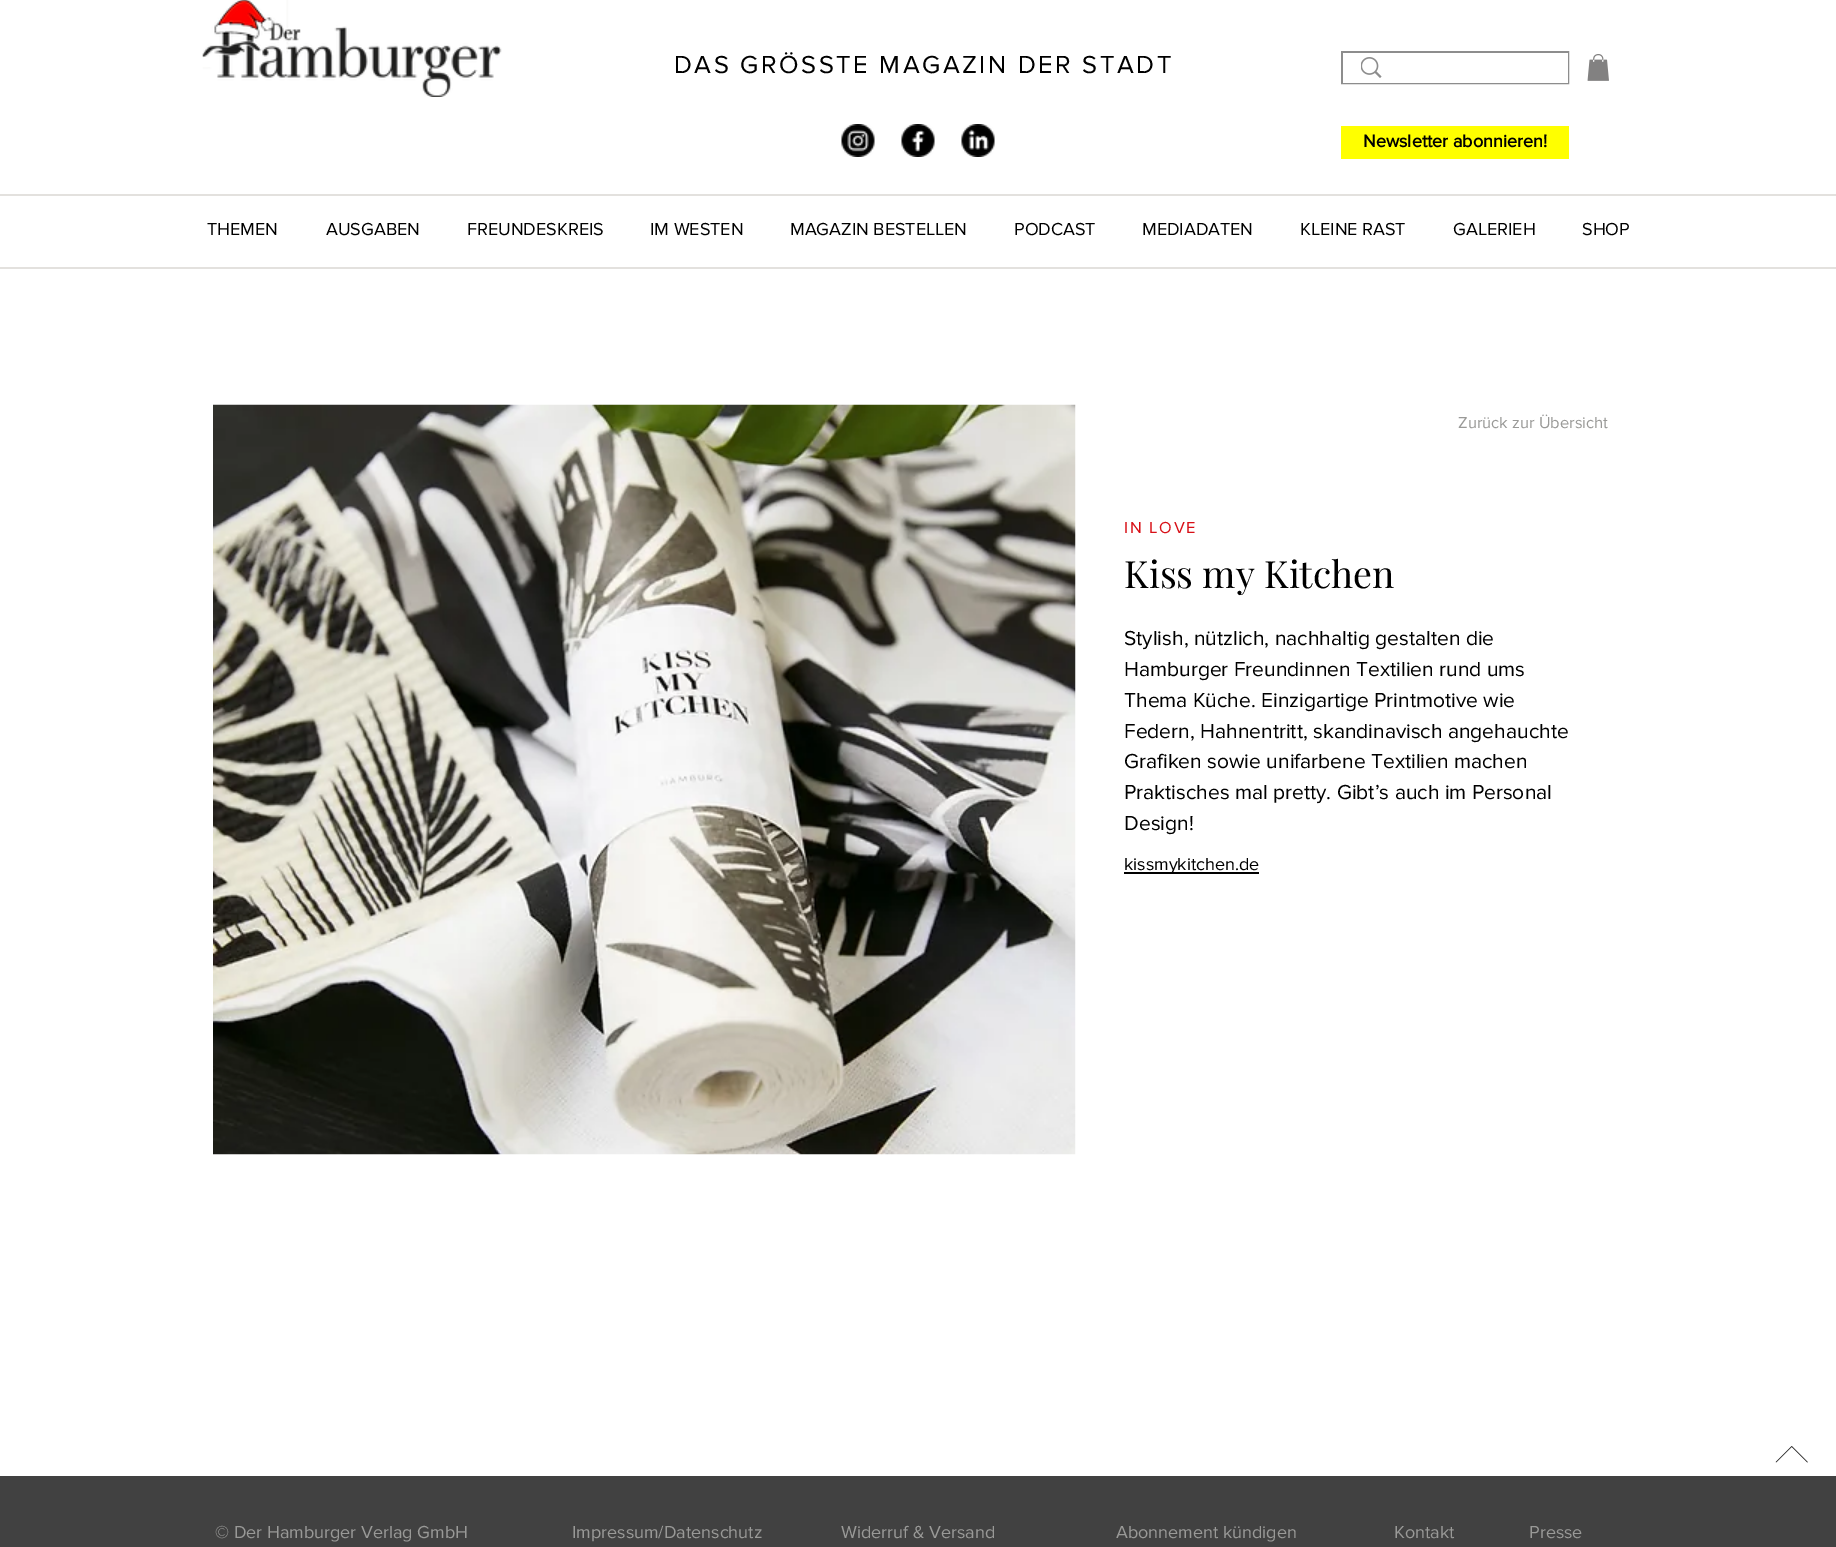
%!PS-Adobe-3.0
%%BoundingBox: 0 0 1836 1547
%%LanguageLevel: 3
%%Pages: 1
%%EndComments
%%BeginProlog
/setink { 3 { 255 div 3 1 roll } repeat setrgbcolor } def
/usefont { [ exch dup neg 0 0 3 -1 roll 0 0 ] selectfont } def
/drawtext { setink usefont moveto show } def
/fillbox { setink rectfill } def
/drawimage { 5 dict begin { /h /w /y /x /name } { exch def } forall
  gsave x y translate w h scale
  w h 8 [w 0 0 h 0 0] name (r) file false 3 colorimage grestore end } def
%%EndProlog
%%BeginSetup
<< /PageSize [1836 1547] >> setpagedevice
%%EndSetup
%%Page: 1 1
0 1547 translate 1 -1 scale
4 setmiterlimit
0 0 1836 1547 255 255 255 fillbox
(assets/img1.rgb) 202 0 300 97 drawimage
/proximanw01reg-Regular 25.5 usefont
0 0 0 setink
674 73 moveto 2.55 0 (DAS GRÖSSTE MAGAZIN DER STADT) ashow
141 141 141 setink
2 setlinewidth
1342 52 226 31 rectstroke
1343 53 225 30 255 255 255 fillbox
(assets/img2.rgb) 1361 57 21 21 drawimage
(assets/img3.rgb) 1587 54 22 27 drawimage
(assets/img4.rgb) 841 124 34 33 drawimage
(assets/img5.rgb) 901 124 34 33 drawimage
(assets/img6.rgb) 961 124 34 33 drawimage
1341 126 228 33 255 255 0 fillbox
(Newsletter abonnieren!) 1363 147 /proximanw01reg-Bold 18 0 0 0 drawtext
0 194 1836 2 227 225 222 fillbox
(THEMEN) 207 235 /proximanw01reg-Regular 18 0 0 0 drawtext
(AUSGABEN) 326 235 /proximanw01reg-Regular 18 0 0 0 drawtext
(FREUNDESKREIS) 467 235 /proximanw01reg-Regular 18 0 0 0 drawtext
(IM WESTEN) 650 235 /proximanw01reg-Regular 18 0 0 0 drawtext
(MAGAZIN BESTELLEN) 790 235 /proximanw01reg-Regular 18 0 0 0 drawtext
(PODCAST) 1014 235 /proximanw01reg-Regular 18 0 0 0 drawtext
(MEDIADATEN) 1142 235 /proximanw01reg-Regular 18 0 0 0 drawtext
(KLEINE RAST) 1300 235 /proximanw01reg-Regular 18 0 0 0 drawtext
(GALERIEH) 1453 235 /proximanw01reg-Regular 18 0 0 0 drawtext
(SHOP) 1582 235 /proximanw01reg-Regular 18 0 0 0 drawtext
0 267 1836 2 227 225 222 fillbox
(assets/img7.rgb) 213 404 863 751 drawimage
(Zurück zur Übersicht) 1458 428 /proximanw01reg-Regular 16.5 153 153 151 drawtext
216 15 22 setink
1124 533 moveto 1.75 0 (IN LOVE) ashow
(Kiss my Kitchen) 1124 588 /PlayfairDisplay-Regular 37.5 0 0 0 drawtext
(Stylish, nützlich, nachhaltig gestalten die) 1124 645 /proximanw01reg-Regular 21 0 0 0 drawtext
(Hamburger Freundinnen Textilien rund ums) 1124 676 /proximanw01reg-Regular 21 0 0 0 drawtext
(Thema Küche. Einzigartige Printmotive wie) 1124 707 /proximanw01reg-Regular 21 0 0 0 drawtext
(Federn, Hahnentritt, skandinavisch angehauchte) 1124 738 /proximanw01reg-Regular 21 0 0 0 drawtext
(Grafiken sowie unifarbene Textilien machen) 1124 768 /proximanw01reg-Regular 21 0 0 0 drawtext
(Praktisches mal pretty. Gibt’s auch im Personal) 1124 799 /proximanw01reg-Regular 21 0 0 0 drawtext
(Design!) 1124 830 /proximanw01reg-Regular 21 0 0 0 drawtext
1124 872 135 2 0 0 0 fillbox
(kissmykitchen.de) 1124 870 /proximanw01reg-Regular 18 0 0 0 drawtext
(assets/img8.rgb) 1775 1446 33 17 drawimage
0 1476 1836 71 65 65 65 fillbox
(© Der Hamburger Verlag GmbH) 215 1538 /proximanw01reg-Regular 18 153 153 151 drawtext
(Impressum/Datenschutz) 572 1538 /proximanw01reg-Regular 18 153 153 151 drawtext
(Widerruf & Versand) 841 1538 /proximanw01reg-Regular 18 153 153 151 drawtext
(Abonnement kündigen) 1116 1538 /proximanw01reg-Regular 18 153 153 151 drawtext
(Kontakt) 1394 1538 /proximanw01reg-Regular 18 153 153 151 drawtext
(Presse) 1529 1538 /proximanw01reg-Regular 18 153 153 151 drawtext
showpage
%%EOF
